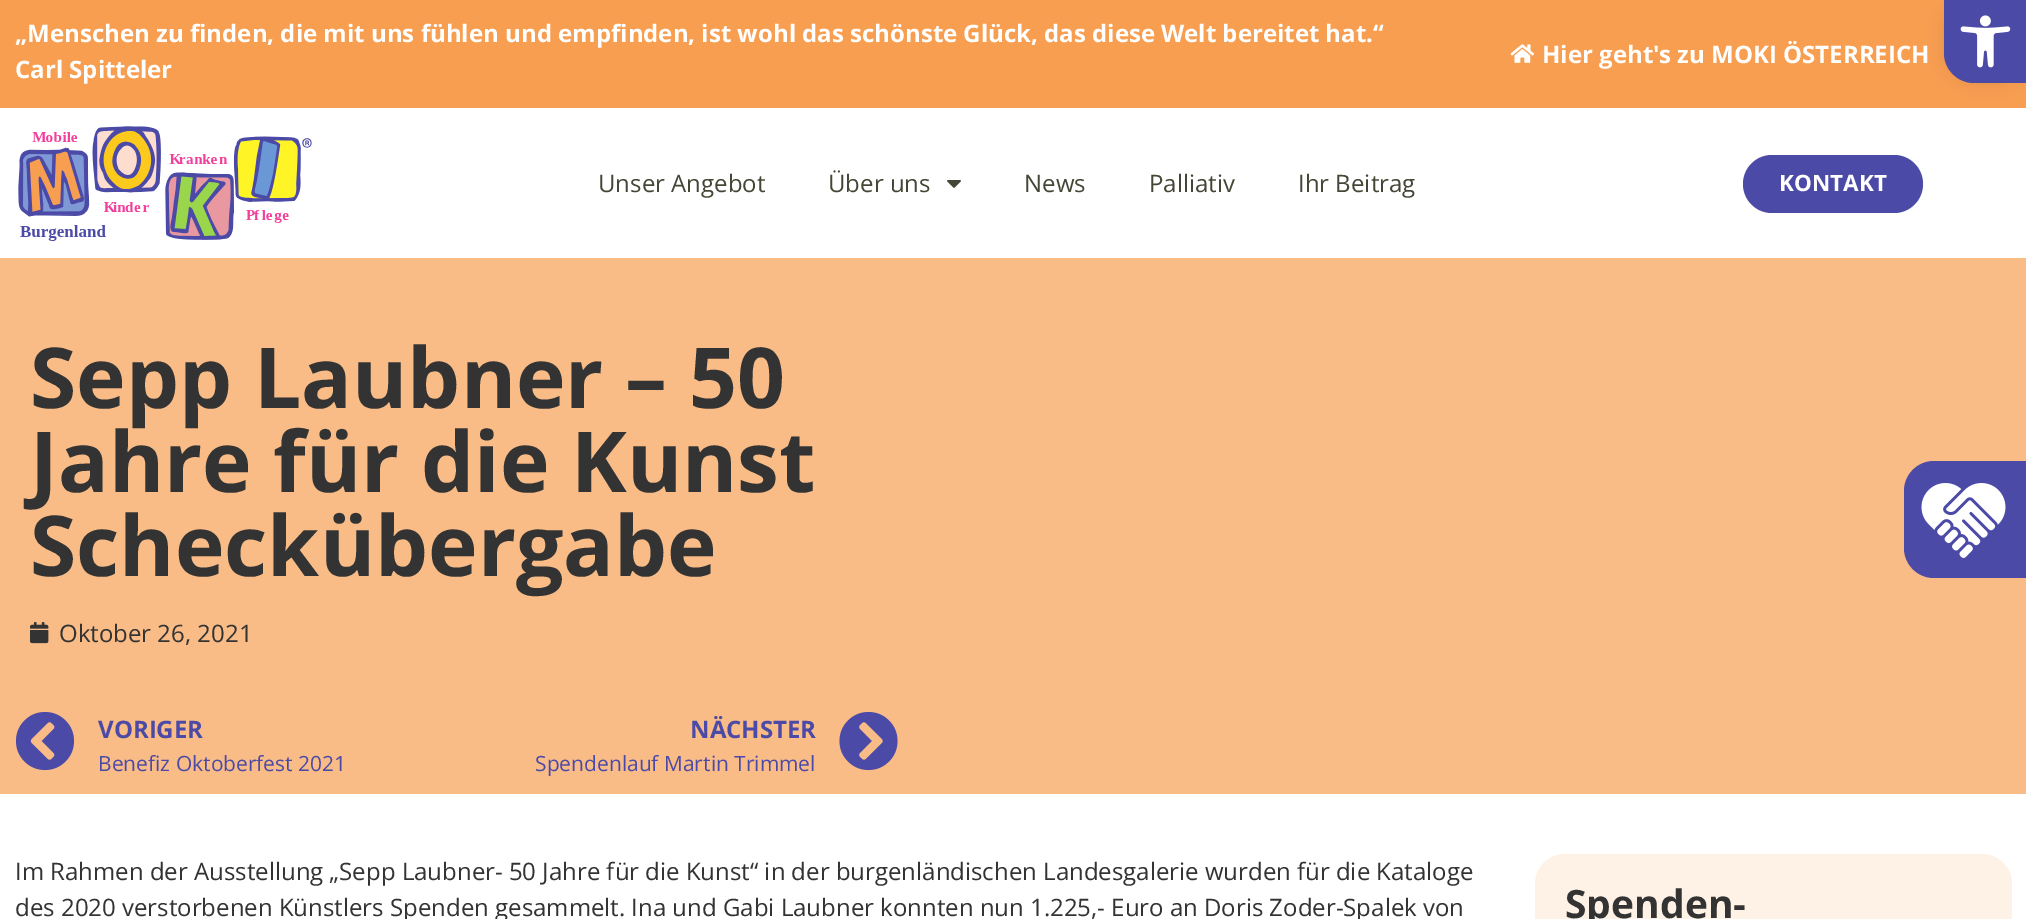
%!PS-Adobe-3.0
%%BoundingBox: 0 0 2026 919
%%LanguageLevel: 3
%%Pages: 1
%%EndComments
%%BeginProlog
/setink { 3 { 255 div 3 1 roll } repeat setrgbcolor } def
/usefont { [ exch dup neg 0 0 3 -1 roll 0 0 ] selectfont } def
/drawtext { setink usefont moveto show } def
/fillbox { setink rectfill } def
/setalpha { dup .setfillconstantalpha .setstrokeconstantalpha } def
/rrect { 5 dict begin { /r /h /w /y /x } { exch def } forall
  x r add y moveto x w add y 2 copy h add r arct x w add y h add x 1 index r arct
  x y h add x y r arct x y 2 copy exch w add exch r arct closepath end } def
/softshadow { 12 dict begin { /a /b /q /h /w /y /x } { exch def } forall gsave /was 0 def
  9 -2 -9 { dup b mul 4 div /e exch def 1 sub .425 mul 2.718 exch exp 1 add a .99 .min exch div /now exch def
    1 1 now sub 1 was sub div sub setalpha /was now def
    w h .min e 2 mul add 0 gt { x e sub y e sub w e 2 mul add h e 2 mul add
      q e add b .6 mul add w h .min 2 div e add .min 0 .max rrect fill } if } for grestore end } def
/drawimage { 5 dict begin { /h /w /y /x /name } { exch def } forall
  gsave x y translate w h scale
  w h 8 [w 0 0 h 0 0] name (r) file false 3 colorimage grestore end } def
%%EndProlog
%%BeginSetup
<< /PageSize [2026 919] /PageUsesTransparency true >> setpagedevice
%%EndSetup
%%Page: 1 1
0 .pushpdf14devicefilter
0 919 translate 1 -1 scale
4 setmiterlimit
0 0 2026 919 255 255 255 fillbox
0 0 2026 108 248 158 81 fillbox
(„Menschen zu finden, die mit uns fühlen und empfinden, ist wohl das schönste Glück, das diese Welt bereitet hat.“) 15 42 /OpenSans-Bold 24 255 255 255 drawtext
(Carl Spitteler) 15 78 /OpenSans-Bold 24 255 255 255 drawtext
(assets/img1.rgb) 1510 44 25 19 drawimage
(Hier geht's zu MOKI ÖSTERREICH) 1542 63 /OpenSans-Bold 24 255 255 255 drawtext
(assets/img2.rgb) 18 126 294 115 drawimage
(Unser Angebot) 598 192 /OpenSans-Regular 24 69 70 54 drawtext
(Über uns) 828 192 /OpenSans-Regular 24 69 70 54 drawtext
(assets/img3.rgb) 947 180 14 8 drawimage
(News) 1024 192 /OpenSans-Regular 24 69 70 54 drawtext
(Palliativ) 1149 192 /OpenSans-Regular 24 69 70 54 drawtext
(Ihr Beitrag) 1298 192 /OpenSans-Regular 24 69 70 54 drawtext
0 258 2026 536 250 188 134 fillbox
76 74 167 setink
1934 461 moveto 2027 461 lineto 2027 578 lineto 1934 578 lineto 1917.5 578 1904 564.5 1904 548 curveto 1904 491 lineto 1904 474.5 1917.5 461 1934 461 curveto closepath fill
(assets/img4.rgb) 1921 483 85 75 drawimage
1743 155 180 58 29 rrect fill
(KONTAKT) 1779 191 /OpenSans-Bold 22.5 255 255 255 drawtext
0 0 0 setink
1944 0 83 83 30 7.5 0.1 softshadow
76 74 167 setink
1944 0 moveto 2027 0 lineto 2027 83 lineto 1974 83 lineto 1957.5 83 1944 69.5 1944 53 curveto closepath fill
(assets/img5.rgb) 1960 15 51 53 drawimage
(Sepp Laubner – 50) 30 408 /OpenSans-Bold 84 51 51 51 drawtext
(Jahre für die Kunst) 30 492 /OpenSans-Bold 84 51 51 51 drawtext
(Scheckübergabe) 30 576 /OpenSans-Bold 84 51 51 51 drawtext
(assets/img6.rgb) 30 622 19 22 drawimage
(Oktober 26, 2021) 59 642 /OpenSans-Regular 24 51 51 51 drawtext
(assets/img7.rgb) 15 711 60 60 drawimage
(VORIGER) 98 738 /OpenSans-Bold 24 76 74 167 drawtext
(Benefiz Oktoberfest 2021) 98 771 /OpenSans-Regular 21 76 74 167 drawtext
(NÄCHSTER) 690 738 /OpenSans-Bold 24 76 74 167 drawtext
(Spendenlauf Martin Trimmel) 535 771 /OpenSans-Regular 21 76 74 167 drawtext
(assets/img8.rgb) 839 711 59 60 drawimage
(Im Rahmen der Ausstellung „Sepp Laubner- 50 Jahre für die Kunst“ in der burgenländischen Landesgalerie wurden für die Kataloge) 15 880 /OpenSans-Regular 24 51 51 51 drawtext
(des 2020 verstorbenen Künstlers Spenden gesammelt. Ina und Gabi Laubner konnten nun 1.225,- Euro an Doris Zoder-Spalek von) 15 916 /OpenSans-Regular 24 51 51 51 drawtext
254 241 229 setink
1535 854 477 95 30 rrect fill
(Spenden-) 1565 918 /OpenSans-Bold 39 51 51 51 drawtext
.poppdf14devicefilter showpage
%%EOF
